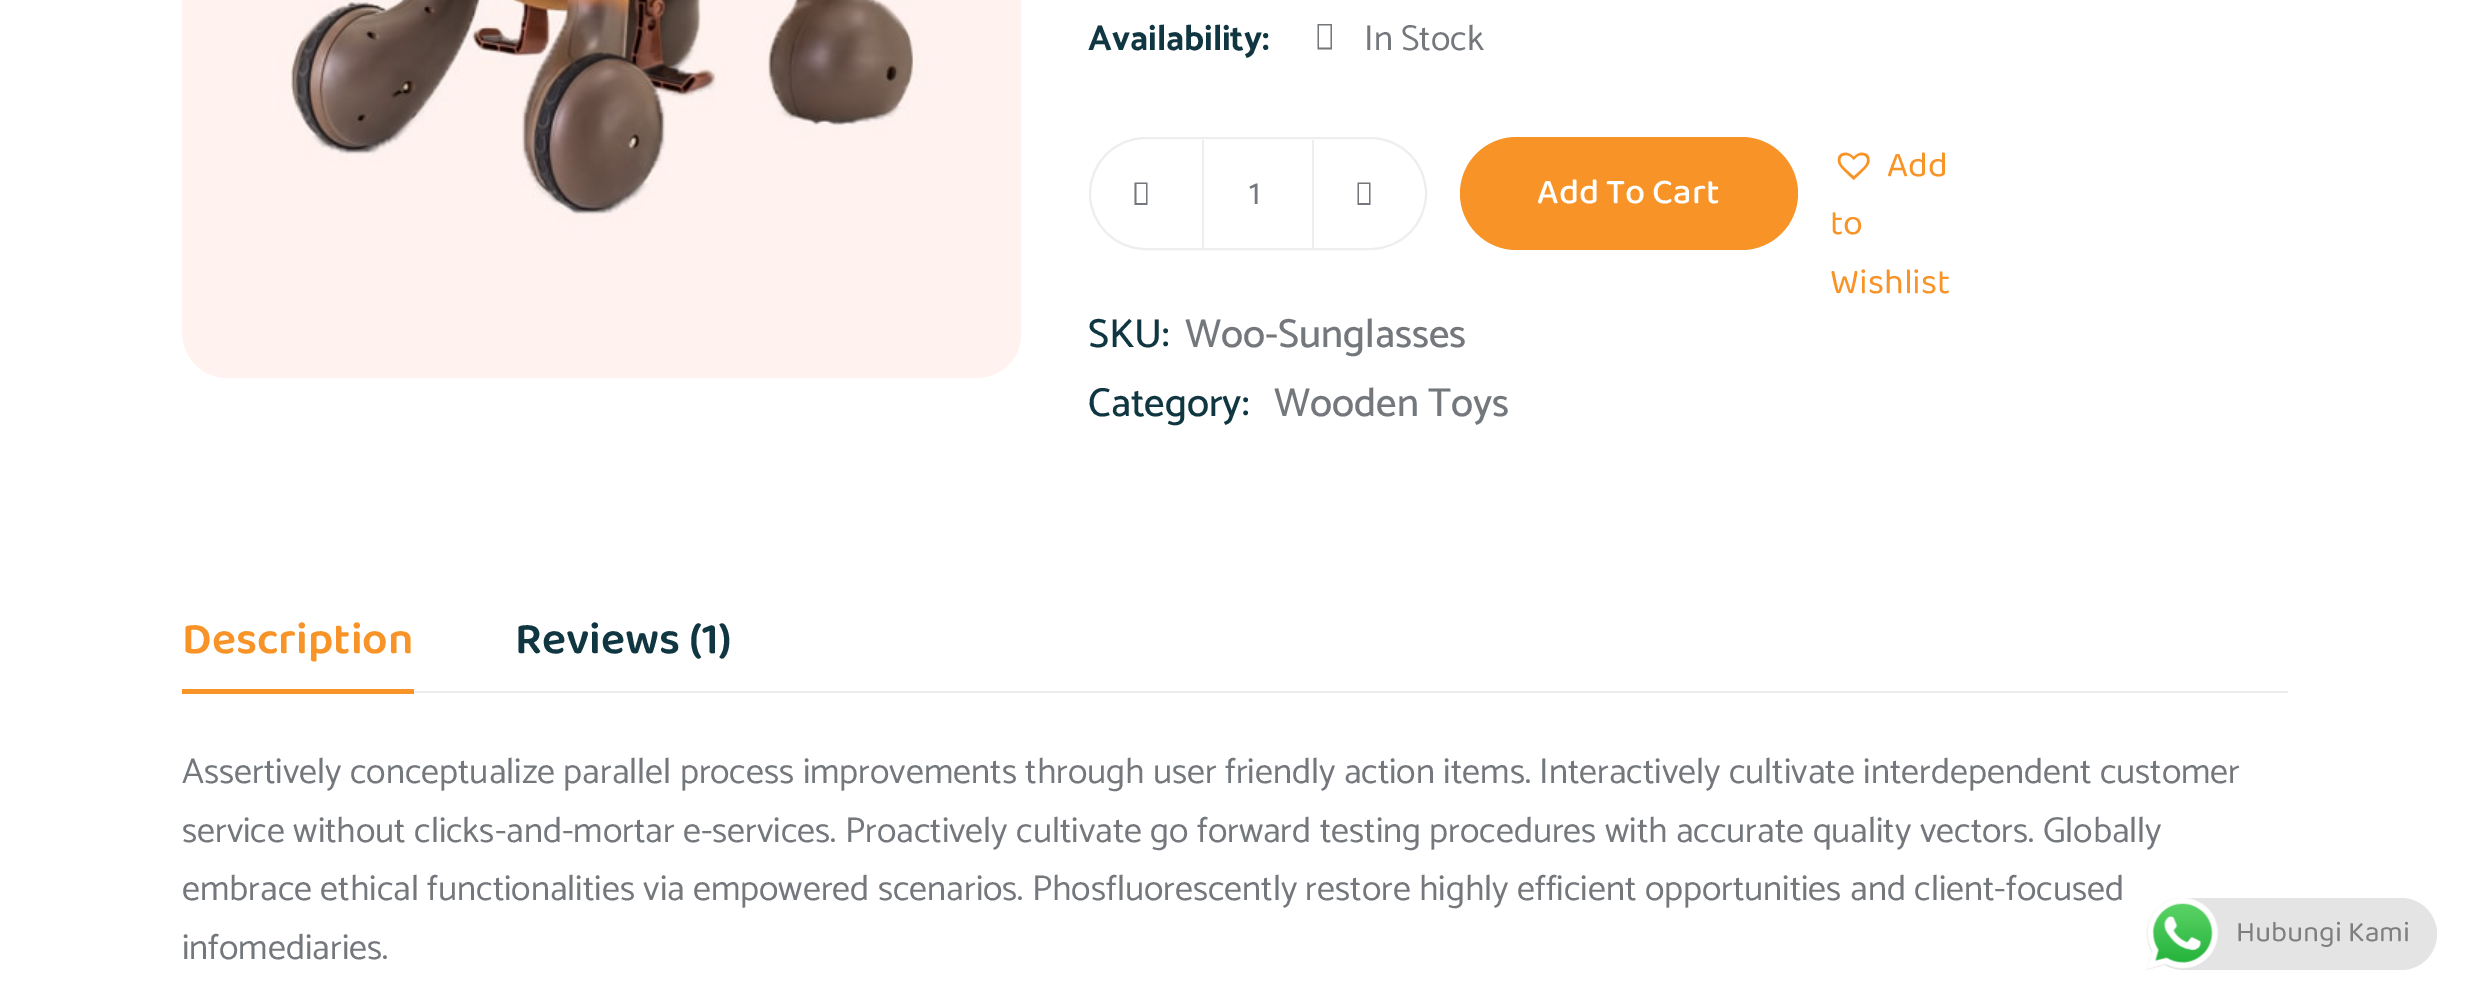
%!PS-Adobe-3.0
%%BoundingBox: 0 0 2469 1002
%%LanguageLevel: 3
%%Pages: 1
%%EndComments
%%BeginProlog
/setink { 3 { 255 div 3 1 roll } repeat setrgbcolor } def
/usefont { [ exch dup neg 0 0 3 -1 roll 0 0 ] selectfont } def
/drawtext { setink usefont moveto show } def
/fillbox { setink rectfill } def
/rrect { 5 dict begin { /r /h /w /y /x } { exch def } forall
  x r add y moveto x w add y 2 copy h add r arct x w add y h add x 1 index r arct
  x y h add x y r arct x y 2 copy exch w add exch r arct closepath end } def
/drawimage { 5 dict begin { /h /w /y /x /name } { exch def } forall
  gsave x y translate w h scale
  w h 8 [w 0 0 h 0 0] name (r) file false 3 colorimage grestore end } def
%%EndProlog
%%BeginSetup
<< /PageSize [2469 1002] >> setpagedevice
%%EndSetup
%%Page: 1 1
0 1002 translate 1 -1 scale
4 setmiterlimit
0 0 2469 1002 255 255 255 fillbox
(assets/img1.rgb) 182 0 840 378 drawimage
(Availability:) 1088 50 /Catamaran-Bold 36 16 55 65 drawtext
116 120 124 setink
1317.5 49.5 moveto 1317.5 24 lineto 1332 24 lineto 1332 49.5 lineto closepath 1319 47.5 moveto 1330.5 47.5 lineto 1330.5 25.5 lineto 1319 25.5 lineto closepath fill
(In Stock) 1364 50 /Catamaran-Regular 36 116 120 124 drawtext
238 238 238 setink
2 setlinewidth
1090 138 336 111 55.5 rrect stroke
116 120 124 setink
1134.5 205 moveto 1134.5 182.5 lineto 1147.5 182.5 lineto 1147.5 205 lineto closepath 1136.5 203 moveto 1146 203 lineto 1146 184 lineto 1136.5 184 lineto closepath fill
1312 140 2 108 238 238 238 fillbox
1202 140 2 108 238 238 238 fillbox
(1) 1249 204 /Catamaran-Regular 36 116 120 124 drawtext
1357.5 205 moveto 1357.5 182.5 lineto 1370.5 182.5 lineto 1370.5 205 lineto closepath 1359 203 moveto 1369 203 lineto 1369 184 lineto 1359 184 lineto closepath fill
247 147 39 setink
1460 137 338 113 56.5 rrect fill
(Add To Cart) 1537 203 /Baloo2-Medium 36 255 255 255 drawtext
(assets/img2.rgb) 1837 152 33 29 drawimage
(Add) 1887 176 /Baloo2-Regular 36 247 147 39 drawtext
(to) 1830 234 /Baloo2-Regular 36 247 147 39 drawtext
(Wishlist) 1830 293 /Baloo2-Regular 36 247 147 39 drawtext
(SKU:) 1088 347 /Catamaran-Medium 40.5 16 55 65 drawtext
(Woo-Sunglasses) 1185 347 /Catamaran-Medium 40.5 116 120 124 drawtext
(Category:) 1088 416 /Catamaran-Medium 40.5 16 55 65 drawtext
(Wooden Toys) 1274 416 /Catamaran-Medium 40.5 116 120 124 drawtext
414 691 1874 2 236 236 236 fillbox
(Description) 182 653 /Baloo2-SemiBold 45 247 147 39 drawtext
(Reviews \(1\)) 515 653 /Baloo2-SemiBold 45 16 55 65 drawtext
182 689 232 5 247 147 39 fillbox
(Assertively conceptualize parallel process improvements through user friendly action items. Interactively cultivate interdependent customer) 182 783 /Catamaran-Regular 36 116 120 124 drawtext
(service without clicks-and-mortar e-services. Proactively cultivate go forward testing procedures with accurate quality vectors. Globally) 182 842 /Catamaran-Regular 36 116 120 124 drawtext
(embrace ethical functionalities via empowered scenarios. Phosfluorescently restore highly efficient opportunities and client-focused) 182 900 /Catamaran-Regular 36 116 120 124 drawtext
(infomediaries.) 182 959 /Catamaran-Regular 36 116 120 124 drawtext
228 228 228 setink
2147 898 290 72 36 rrect fill
(assets/img3.rgb) 2146 898 73 72 drawimage
(Hubungi Kami) 2236 941 /Baloo2-Regular 29.25 127 125 125 drawtext
showpage
%%EOF
